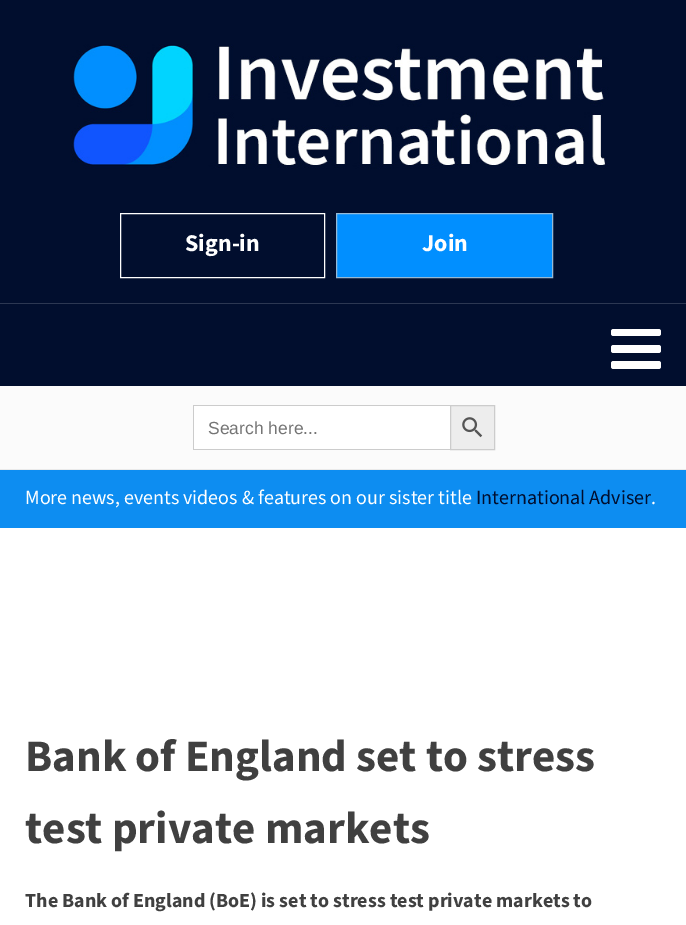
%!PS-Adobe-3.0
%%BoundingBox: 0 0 686 925
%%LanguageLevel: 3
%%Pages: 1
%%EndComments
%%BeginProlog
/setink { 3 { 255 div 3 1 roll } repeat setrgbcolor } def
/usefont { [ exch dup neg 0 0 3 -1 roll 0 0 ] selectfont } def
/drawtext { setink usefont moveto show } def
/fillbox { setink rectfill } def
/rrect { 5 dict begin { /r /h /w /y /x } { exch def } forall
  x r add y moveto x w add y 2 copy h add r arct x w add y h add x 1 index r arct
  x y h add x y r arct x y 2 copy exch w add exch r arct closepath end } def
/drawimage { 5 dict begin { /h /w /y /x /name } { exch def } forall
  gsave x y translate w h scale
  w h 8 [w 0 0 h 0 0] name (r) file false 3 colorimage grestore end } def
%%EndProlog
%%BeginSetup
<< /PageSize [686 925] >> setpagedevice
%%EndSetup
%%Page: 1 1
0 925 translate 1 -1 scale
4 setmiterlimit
0 0 686 925 255 255 255 fillbox
0 0 686 303 1 14 46 fillbox
0 303 686 1 44 55 82 fillbox
(assets/img1.rgb) 71 44 538 125 drawimage
255 255 255 setink
120.5 213.5 204 64 rectstroke
(Sign-in) 185 251 /SourceSans3-Bold 24 255 255 255 drawtext
1 143 255 setink
336.5 213.5 moveto 552.5 213.5 lineto 552.5 277.5 lineto 336.5 277.5 lineto closepath gsave fill grestore
149 185 214 setink
stroke
(Join) 422 251 /SourceSans3-Bold 24 255 255 255 drawtext
0 304 686 82 1 14 46 fillbox
255 255 255 setink
611 329 50 7 2.5 rrect fill
611 345 50 8 2.5 rrect fill
611 361 50 8 2.5 rrect fill
0 386 686 83 251 251 251 fillbox
0 469 686 1 234 234 234 fillbox
194 406 256 43 255 255 255 fillbox
193 405 257 1 204 204 204 fillbox
193 449 257 1 204 204 204 fillbox
193 405 1 45 204 204 204 fillbox
(Search here...) 208 434 /LiberationSans-Regular 17.5 117 117 117 drawtext
237 237 237 setink
450.5 405.5 moveto 494.5 405.5 lineto 494.5 449.5 lineto 450.5 449.5 lineto closepath gsave fill grestore
204 204 204 setink
stroke
(assets/img2.rgb) 462 417 21 21 drawimage
0 470 686 58 13 141 241 fillbox
(More news, events videos & features on our sister title) 25 504 /SourceSans3-Regular 20 255 255 255 drawtext
(International Adviser) 476 504 /SourceSans3-Regular 20 1 14 46 drawtext
(.) 651 504 /SourceSans3-Regular 20 255 255 255 drawtext
(Bank of England set to stress) 25 771 /SourceSans3-Bold 45 64 64 64 drawtext
(test private markets) 25 843 /SourceSans3-Bold 45 64 64 64 drawtext
(The Bank of England \(BoE\) is set to stress test private markets to) 25 907 /SourceSans3-Bold 20 64 64 64 drawtext
showpage
%%EOF
